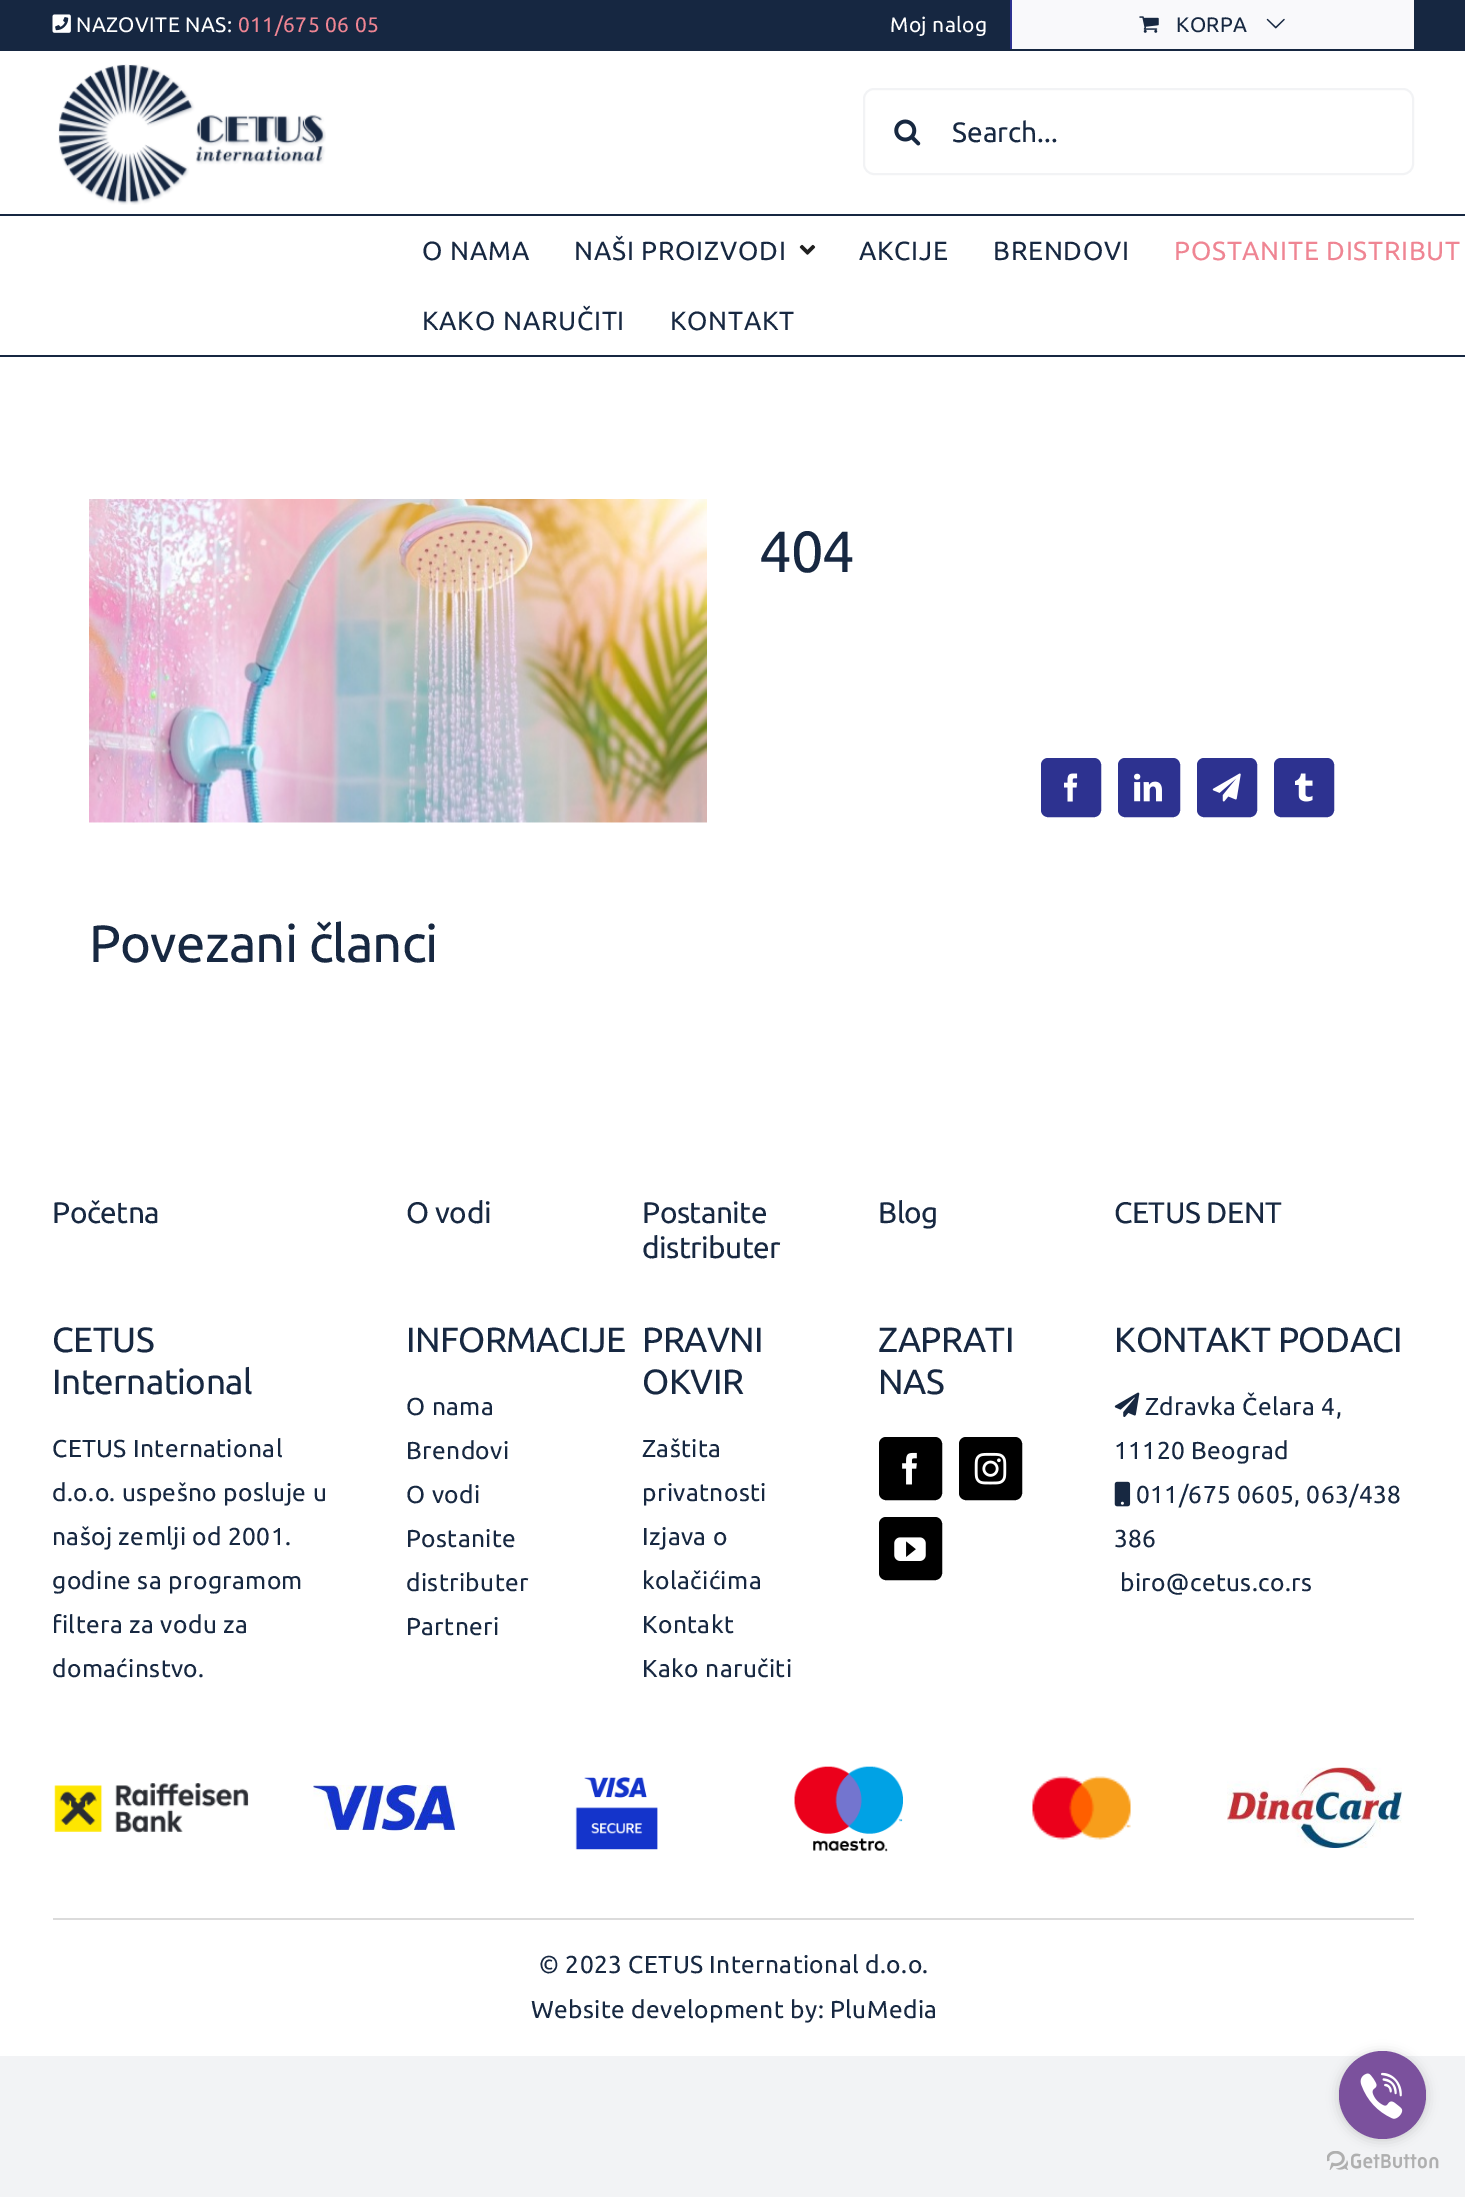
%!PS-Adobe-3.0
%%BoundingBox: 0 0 1465 2197
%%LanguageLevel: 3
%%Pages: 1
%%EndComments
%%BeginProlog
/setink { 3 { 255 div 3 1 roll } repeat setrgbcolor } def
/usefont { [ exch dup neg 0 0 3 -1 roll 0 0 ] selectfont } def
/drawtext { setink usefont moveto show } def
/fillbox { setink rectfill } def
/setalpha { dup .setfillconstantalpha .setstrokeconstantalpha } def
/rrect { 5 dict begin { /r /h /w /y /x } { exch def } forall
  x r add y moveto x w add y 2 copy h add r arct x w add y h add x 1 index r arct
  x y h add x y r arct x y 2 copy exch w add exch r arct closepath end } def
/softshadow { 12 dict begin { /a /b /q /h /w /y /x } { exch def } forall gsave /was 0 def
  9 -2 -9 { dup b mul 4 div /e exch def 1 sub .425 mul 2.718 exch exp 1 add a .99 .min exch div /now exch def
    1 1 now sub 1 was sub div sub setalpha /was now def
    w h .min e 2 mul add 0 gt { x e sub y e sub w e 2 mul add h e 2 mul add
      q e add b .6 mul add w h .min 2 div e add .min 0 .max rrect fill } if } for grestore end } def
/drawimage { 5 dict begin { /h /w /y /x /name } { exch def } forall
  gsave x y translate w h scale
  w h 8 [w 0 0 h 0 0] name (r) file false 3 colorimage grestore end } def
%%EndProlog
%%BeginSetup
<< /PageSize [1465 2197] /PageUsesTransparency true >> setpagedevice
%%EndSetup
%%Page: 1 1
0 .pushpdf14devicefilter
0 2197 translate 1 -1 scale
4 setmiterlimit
0 0 1465 2197 242 243 245 fillbox
0 51 1465 2005 255 255 255 fillbox
0 0 1465 51 22 39 65 fillbox
(assets/img1.rgb) 52 14 19 19 drawimage
/Ubuntu-Regular 21 usefont
255 255 255 setink
76 32 moveto 0.4 0 (NAZOVITE NAS:) ashow
239 133 147 setink
238 32 moveto 0.4 0 (011/675 06 05) ashow
255 255 255 setink
890 32 moveto 0.4 0 (Moj nalog) ashow
1010 0 2 49 45 50 144 fillbox
1012 0 402 49 249 249 251 fillbox
(assets/img2.rgb) 1139 16 20 17 drawimage
23 40 65 setink
1176 32 moveto 0.4 0 (KORPA) ashow
(assets/img3.rgb) 1266 18 19 11 drawimage
0 214 1465 2 22 39 65 fillbox
(assets/img4.rgb) 58 64 268 141 drawimage
242 243 245 setink
2 setlinewidth
864 89 549 85 10 rrect stroke
(assets/img5.rgb) 894 119 27 27 drawimage
(Search...) 952 142 /Ubuntu-Regular 28 23 40 65 drawtext
0 355 1465 2 22 39 65 fillbox
/Ubuntu-Regular 26.25 usefont
23 40 65 setink
422 260 moveto 0.75 0 (O NAMA) ashow
574 260 moveto 0.75 0 (NAŠI PROIZVODI) ashow
(assets/img6.rgb) 799 244 17 11 drawimage
859 260 moveto 0.75 0 (AKCIJE) ashow
993 260 moveto 0.75 0 (BRENDOVI) ashow
239 133 147 setink
1174 260 moveto 0.75 0 (POSTANITE DISTRIBUT) ashow
23 40 65 setink
422 330 moveto 0.75 0 (KAKO NARUČITI) ashow
670 330 moveto 0.75 0 (KONTAKT) ashow
(assets/img7.rgb) 89 499 618 324 drawimage
/Ubuntu-Regular 58 usefont
759 572 moveto -1 0 (404) ashow
45 50 144 setink
1042 759 58 57 6 rrect gsave fill grestore
stroke
(assets/img8.rgb) 1064 773 14 29 drawimage
1119 759 60 57 6 rrect gsave fill grestore
stroke
(assets/img9.rgb) 1134 773 28 29 drawimage
1198 759 58 57 6 rrect gsave fill grestore
stroke
(assets/img10.rgb) 1212 773 29 29 drawimage
1275 759 58 57 6 rrect gsave fill grestore
stroke
(assets/img11.rgb) 1295 773 18 29 drawimage
/Ubuntu-Regular 52.5 usefont
23 40 65 setink
89 962 moveto -0.75 0 (Povezani članci) ashow
/Ubuntu-Regular 29.75 usefont
52 1223 moveto -0.5 0 (Početna) ashow
406 1223 moveto -0.5 0 (O vodi) ashow
642 1223 moveto -0.5 0 (Postanite) ashow
642 1258 moveto -0.5 0 (distributer) ashow
878 1223 moveto -0.5 0 (Blog) ashow
1114 1223 moveto -0.5 0 (CETUS DENT) ashow
/Ubuntu-Regular 35 usefont
52 1352 moveto -0.5 0 (CETUS) ashow
52 1394 moveto -0.5 0 (International) ashow
/Ubuntu-Regular 24.5 usefont
52 1457 moveto 0.4 0 (CETUS International) ashow
52 1501 moveto 0.4 0 (d.o.o. uspešno posluje u) ashow
52 1545 moveto 0.4 0 (našoj zemlji od 2001.) ashow
52 1589 moveto 0.4 0 (godine sa programom) ashow
52 1633 moveto 0.4 0 (filtera za vodu za) ashow
52 1677 moveto 0.4 0 (domaćinstvo.) ashow
/Ubuntu-Regular 35 usefont
406 1352 moveto -0.5 0 (INFORMACIJE) ashow
/Ubuntu-Regular 24.5 usefont
406 1415 moveto 0.4 0 (O nama) ashow
406 1459 moveto 0.4 0 (Brendovi) ashow
406 1503 moveto 0.4 0 (O vodi) ashow
406 1547 moveto 0.4 0 (Postanite) ashow
406 1591 moveto 0.4 0 (distributer) ashow
406 1635 moveto 0.4 0 (Partneri) ashow
/Ubuntu-Regular 35 usefont
642 1352 moveto -0.5 0 (PRAVNI) ashow
642 1394 moveto -0.5 0 (OKVIR) ashow
/Ubuntu-Regular 24.5 usefont
642 1457 moveto 0.4 0 (Zaštita) ashow
642 1501 moveto 0.4 0 (privatnosti) ashow
642 1545 moveto 0.4 0 (Izjava o) ashow
642 1589 moveto 0.4 0 (kolačićima) ashow
642 1633 moveto 0.4 0 (Kontakt) ashow
642 1677 moveto 0.4 0 (Kako naručiti) ashow
/Ubuntu-Regular 35 usefont
878 1352 moveto -0.5 0 (ZAPRATI) ashow
878 1394 moveto -0.5 0 (NAS) ashow
0 0 0 setink
880 1438 61 61 6 rrect gsave fill grestore
stroke
(assets/img12.rgb) 902 1452 15 33 drawimage
960 1438 61 61 6 rrect gsave fill grestore
stroke
(assets/img13.rgb) 974 1452 33 33 drawimage
880 1518 61 61 6 rrect gsave fill grestore
stroke
(assets/img14.rgb) 894 1537 32 24 drawimage
23 40 65 setink
1114 1352 moveto -0.5 0 (KONTAKT PODACI) ashow
(assets/img15.rgb) 1114 1392 26 25 drawimage
/Ubuntu-Regular 24.5 usefont
1145 1415 moveto 0.4 0 (Zdravka Čelara 4,) ashow
1114 1459 moveto 0.4 0 (11120 Beograd) ashow
(assets/img16.rgb) 1114 1481 17 26 drawimage
1136 1503 moveto 0.4 0 (011/675 0605, 063/438) ashow
1114 1547 moveto 0.4 0 (386) ashow
1120 1591 moveto 0.4 0 (biro@cetus.co.rs) ashow
(assets/img17.rgb) 54 1783 195 50 drawimage
(assets/img18.rgb) 313 1785 142 46 drawimage
(assets/img19.rgb) 575 1777 83 73 drawimage
(assets/img20.rgb) 794 1766 109 86 drawimage
(assets/img21.rgb) 1032 1776 99 64 drawimage
(assets/img22.rgb) 1227 1767 175 81 drawimage
53 1918 1361 2 219 219 219 fillbox
23 40 65 setink
539 1973 moveto 0.4 0 (© 2023 CETUS International d.o.o.) ashow
531 2018 moveto 0.4 0 (Website development by: PluMedia) ashow
(assets/img24.rgb) 1327 2151 112 19 drawimage
136 136 136 setink
1339 2053 87 87 43.5 6 0.4 softshadow
123 81 157 setink
1339 2051 87 88 43.5 rrect fill
(assets/img23.rgb) 1360 2072 43 47 drawimage
.poppdf14devicefilter showpage
%%EOF
